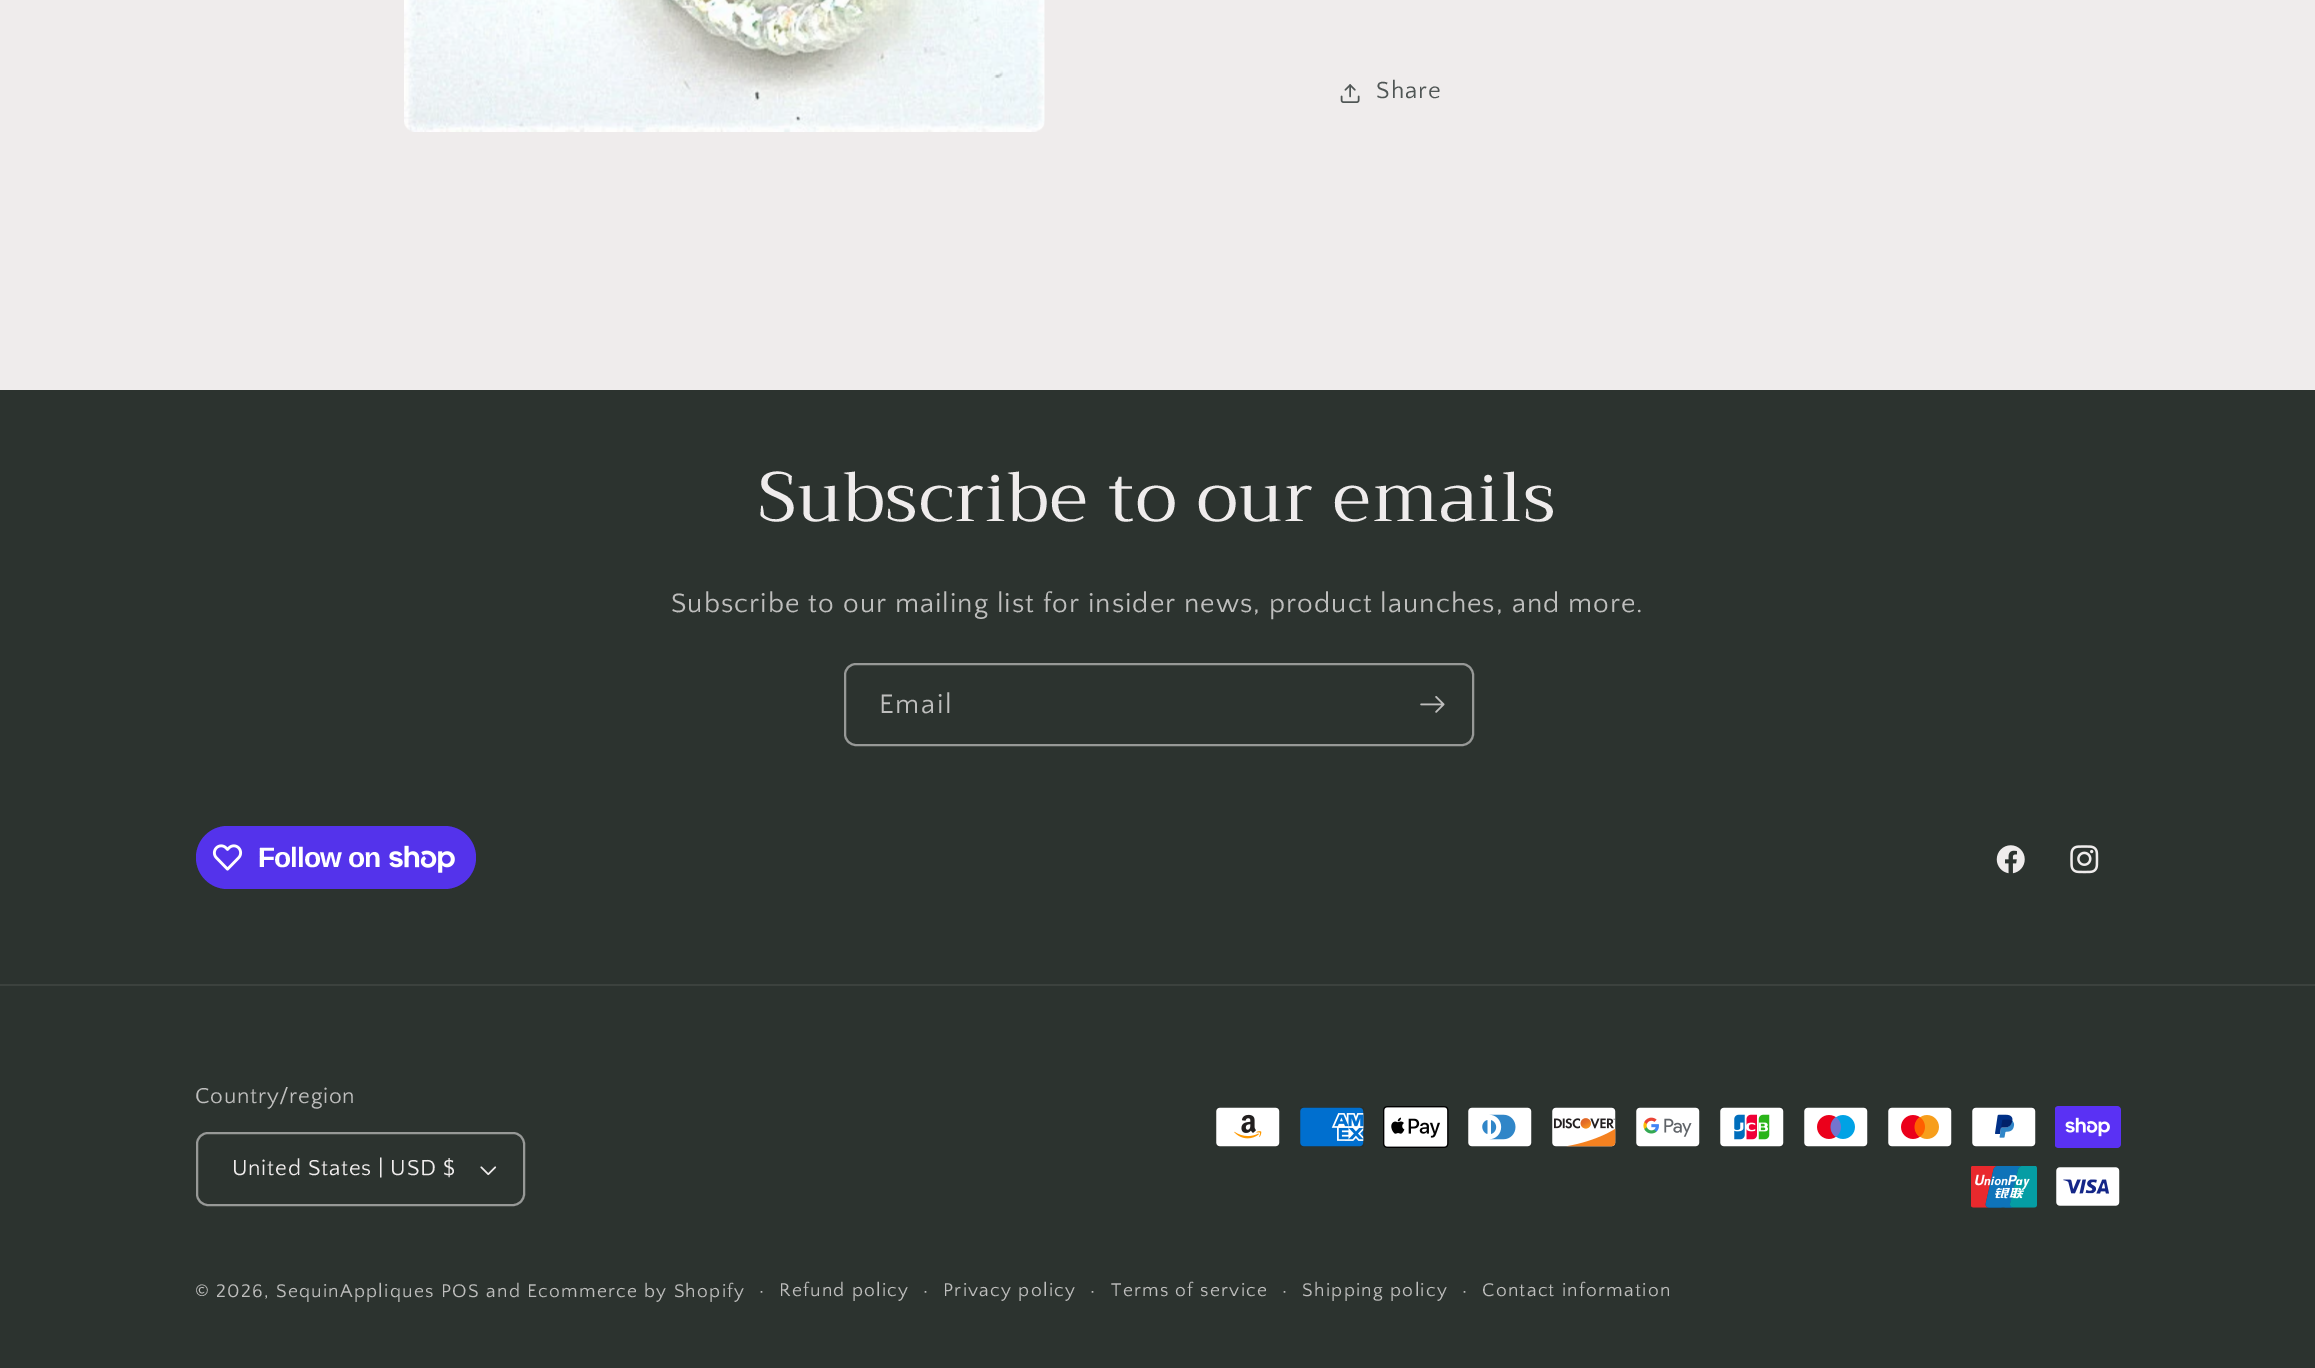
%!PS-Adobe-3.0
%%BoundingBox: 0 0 2315 1368
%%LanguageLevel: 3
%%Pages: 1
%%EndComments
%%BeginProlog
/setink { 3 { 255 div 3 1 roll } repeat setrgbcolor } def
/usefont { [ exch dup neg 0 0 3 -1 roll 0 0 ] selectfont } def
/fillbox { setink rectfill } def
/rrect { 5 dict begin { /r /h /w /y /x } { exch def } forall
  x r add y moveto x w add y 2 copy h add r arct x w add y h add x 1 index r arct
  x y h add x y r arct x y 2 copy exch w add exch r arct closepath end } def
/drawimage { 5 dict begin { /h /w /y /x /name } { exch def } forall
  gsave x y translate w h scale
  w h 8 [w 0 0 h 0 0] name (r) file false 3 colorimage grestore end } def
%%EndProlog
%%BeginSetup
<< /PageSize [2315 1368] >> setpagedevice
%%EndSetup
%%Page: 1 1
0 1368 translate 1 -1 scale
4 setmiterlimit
0 0 2315 1368 239 236 236 fillbox
(assets/img1.rgb) 404 0 641 132 drawimage
(assets/img2.rgb) 1340 84 20 19 drawimage
/QuattrocentoSans-Regular 24.5 usefont
80 86 85 setink
1376 98 moveto 1.05 0 (Share) ashow
0 390 2315 978 44 51 47 fillbox
/Trirong-Regular 70 usefont
239 236 236 setink
758 521 moveto 1.05 0 (Subscribe to our emails) ashow
/QuattrocentoSans-Regular 28 usefont
190 190 189 setink
671 612 moveto 1.05 0 (Subscribe to our mailing list for insider news, product launches, and more.) ashow
151 153 151 setink
2 setlinewidth
845 664 628 81 11 rrect stroke
190 190 189 setink
879 713 moveto 1.75 0 (Email) ashow
(assets/img3.rgb) 1420 696 25 17 drawimage
84 51 235 setink
196 826 280 63 31.5 rrect fill
(assets/img4.rgb) 212 844 31 27 drawimage
/LiberationSans-Bold 28 usefont
255 255 255 setink
258 867 moveto -0.9 0 (Follow on) ashow
(assets/img5.rgb) 389 845 66 28 drawimage
(assets/img6.rgb) 1996 845 29 29 drawimage
(assets/img7.rgb) 2070 845 29 29 drawimage
0 984 2315 2 60 66 62 fillbox
/QuattrocentoSans-Regular 22.75 usefont
190 190 189 setink
195 1103 moveto 0.7 0 (Country/region) ashow
(assets/img8.rgb) 480 1166 17 10 drawimage
151 153 151 setink
197 1133 327 72 11 rrect stroke
239 236 236 setink
232 1175 moveto 0.7 0 (United States | USD $) ashow
(assets/img9.rgb) 1216 1107 64 40 drawimage
(assets/img10.rgb) 1300 1107 64 40 drawimage
(assets/img11.rgb) 1383 1106 66 42 drawimage
(assets/img12.rgb) 1468 1107 64 40 drawimage
(assets/img13.rgb) 1552 1107 64 40 drawimage
(assets/img14.rgb) 1636 1107 64 40 drawimage
(assets/img15.rgb) 1720 1107 64 40 drawimage
(assets/img16.rgb) 1804 1107 64 40 drawimage
(assets/img17.rgb) 1888 1107 64 40 drawimage
(assets/img18.rgb) 1972 1107 64 40 drawimage
(assets/img19.rgb) 2055 1106 66 42 drawimage
(assets/img20.rgb) 1971 1166 66 42 drawimage
(assets/img21.rgb) 2056 1167 64 39 drawimage
/QuattrocentoSans-Regular 19.25 usefont
190 190 189 setink
195 1297 moveto 1.25 0 (© 2026, SequinAppliques) ashow
441 1297 moveto 1.25 0 (POS and Ecommerce by Shopify) ashow
/QuattrocentoSans-Regular 21 usefont
759 1297 moveto 1.25 0 (·) ashow
/QuattrocentoSans-Regular 19.25 usefont
779 1296 moveto 1.25 0 (Refund policy) ashow
/QuattrocentoSans-Regular 21 usefont
923 1297 moveto 1.25 0 (·) ashow
/QuattrocentoSans-Regular 19.25 usefont
943 1296 moveto 1.25 0 (Privacy policy) ashow
/QuattrocentoSans-Regular 21 usefont
1090 1297 moveto 1.25 0 (·) ashow
/QuattrocentoSans-Regular 19.25 usefont
1111 1296 moveto 1.25 0 (Terms of service) ashow
/QuattrocentoSans-Regular 21 usefont
1282 1297 moveto 1.25 0 (·) ashow
/QuattrocentoSans-Regular 19.25 usefont
1302 1296 moveto 1.25 0 (Shipping policy) ashow
/QuattrocentoSans-Regular 21 usefont
1462 1297 moveto 1.25 0 (·) ashow
/QuattrocentoSans-Regular 19.25 usefont
1482 1296 moveto 1.25 0 (Contact information) ashow
showpage
%%EOF
